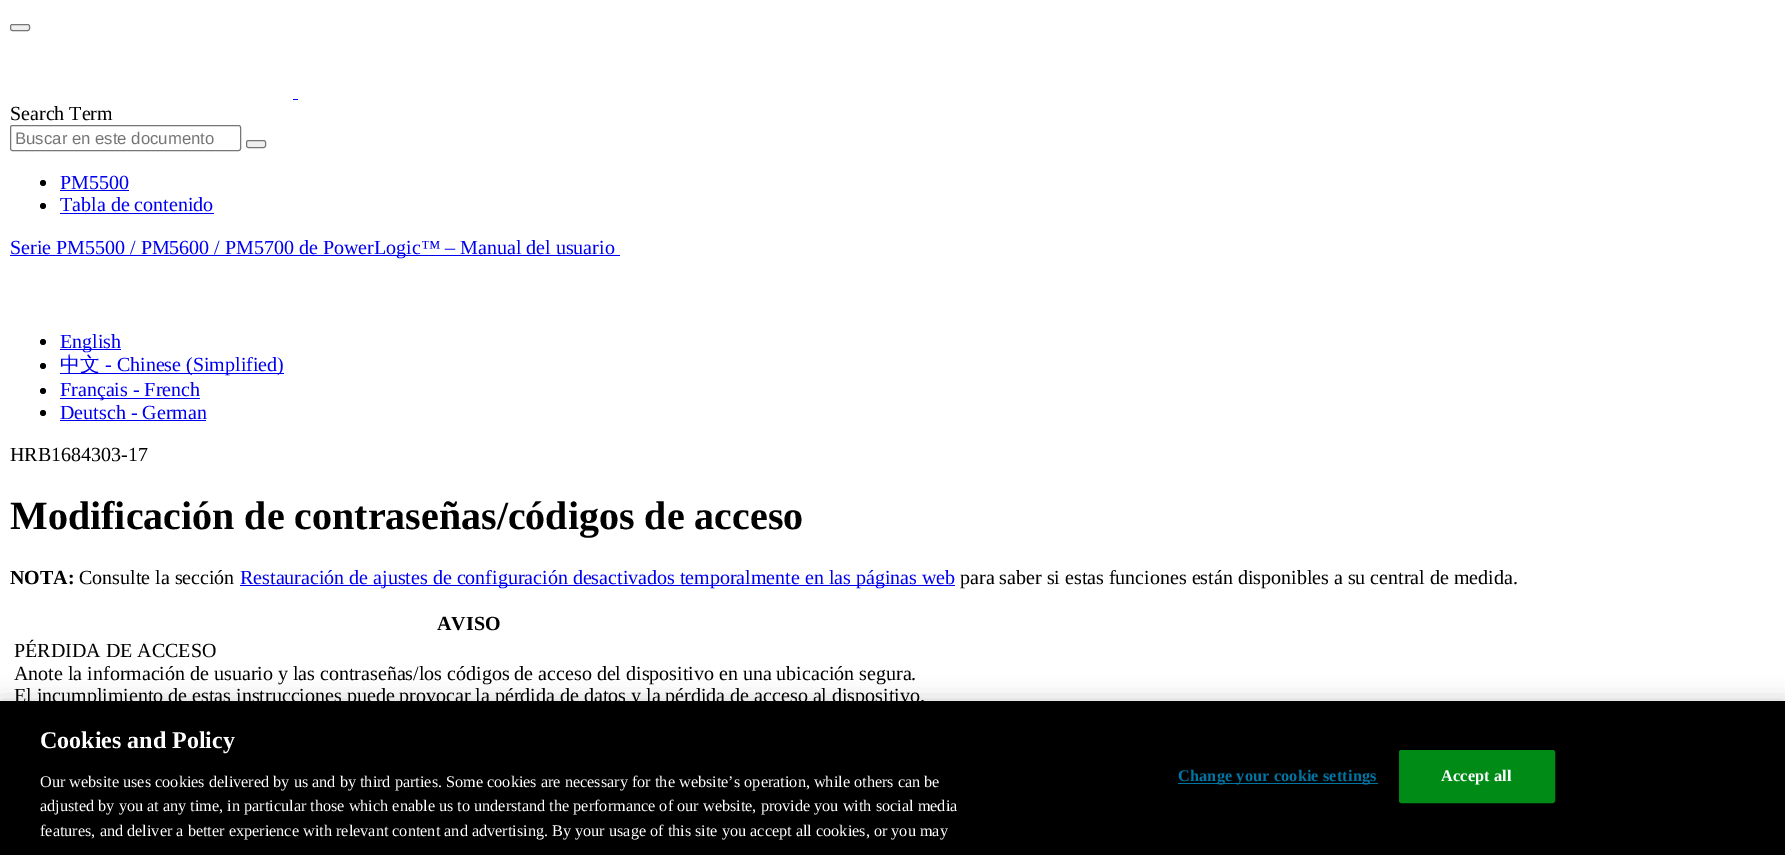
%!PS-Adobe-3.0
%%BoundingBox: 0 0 1785 855
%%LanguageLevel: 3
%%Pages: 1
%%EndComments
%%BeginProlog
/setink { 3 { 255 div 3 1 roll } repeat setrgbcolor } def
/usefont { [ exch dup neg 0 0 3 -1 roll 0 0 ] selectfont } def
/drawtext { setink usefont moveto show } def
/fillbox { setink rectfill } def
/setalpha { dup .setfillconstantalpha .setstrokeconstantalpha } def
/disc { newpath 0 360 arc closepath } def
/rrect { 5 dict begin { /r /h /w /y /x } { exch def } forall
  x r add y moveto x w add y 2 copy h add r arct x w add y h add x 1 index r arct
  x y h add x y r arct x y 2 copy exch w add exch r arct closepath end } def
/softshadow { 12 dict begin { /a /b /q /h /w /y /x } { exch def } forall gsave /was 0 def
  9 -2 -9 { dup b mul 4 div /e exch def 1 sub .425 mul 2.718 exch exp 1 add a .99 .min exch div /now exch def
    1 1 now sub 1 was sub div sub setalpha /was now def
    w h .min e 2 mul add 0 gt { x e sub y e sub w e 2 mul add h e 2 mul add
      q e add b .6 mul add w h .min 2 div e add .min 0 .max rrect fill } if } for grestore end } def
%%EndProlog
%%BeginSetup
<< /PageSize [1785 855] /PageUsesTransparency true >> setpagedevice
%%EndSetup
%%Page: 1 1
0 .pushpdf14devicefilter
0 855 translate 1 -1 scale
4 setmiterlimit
0 0 1785 855 255 255 255 fillbox
239 239 239 setink
10.5 24.5 19 6 2 rrect gsave fill grestore
118 118 118 setink
stroke
293 99 5 1 0 0 238 fillbox
(Search Term) 10 120 /LiberationSerif-Regular 20 0 0 0 drawtext
118 118 118 setink
10.5 125.5 230 25 2 rrect stroke
(Buscar en este documento) 15 144 /LiberationSans-Regular 16.75 117 117 117 drawtext
239 239 239 setink
246.5 140.5 19 7 2 rrect gsave fill grestore
118 118 118 setink
stroke
0 0 0 setink
43 183 3 disc fill
(PM5500) 60 189 /LiberationSerif-Regular 20 0 0 238 drawtext
60 190 69 1 0 0 238 fillbox
0 0 0 setink
43 206 3 disc fill
(Tabla de contenido) 60 211 /LiberationSerif-Regular 20 0 0 238 drawtext
60 213 154 1 0 0 238 fillbox
10 255 610 1 0 0 238 fillbox
(Serie PM5500 / PM5600 / PM5700 de PowerLogic™ – Manual del usuario) 10 254 /LiberationSerif-Regular 20 0 0 238 drawtext
0 0 0 setink
43 342 3 disc fill
60 349 61 1 0 0 238 fillbox
(English) 60 348 /LiberationSerif-Regular 20 0 0 238 drawtext
0 0 0 setink
43 366 3 disc fill
60 373 224 1 0 0 238 fillbox
(中文) 60 371 /WenQuanYiZenHei-Medium 20 0 0 238 drawtext
(- Chinese \(Simplified\)) 105 371 /LiberationSerif-Regular 20 0 0 238 drawtext
0 0 0 setink
43 391 3 disc fill
60 398 140 1 0 0 238 fillbox
(Français - French) 60 396 /LiberationSerif-Regular 20 0 0 238 drawtext
0 0 0 setink
43 413 3 disc fill
(Deutsch - German) 60 419 /LiberationSerif-Regular 20 0 0 238 drawtext
60 420 146 1 0 0 238 fillbox
(HRB1684303-17) 10 461 /LiberationSerif-Regular 20 0 0 0 drawtext
(Modificación de contraseñas/códigos de acceso) 10 529 /LiberationSerif-Bold 40 0 0 0 drawtext
(NOTA:) 10 584 /LiberationSerif-Bold 20 0 0 0 drawtext
(Consulte la sección) 79 584 /LiberationSerif-Regular 20 0 0 0 drawtext
240 585 715 1 0 0 238 fillbox
(Restauración de ajustes de configuración desactivados temporalmente en las páginas web) 240 584 /LiberationSerif-Regular 20 0 0 238 drawtext
(para saber si estas funciones están disponibles a su central de medida.) 960 584 /LiberationSerif-Regular 20 0 0 0 drawtext
(AVISO) 437 630 /LiberationSerif-Bold 20 0 0 0 drawtext
(PÉRDIDA DE ACCESO) 14 657 /LiberationSerif-Regular 20 0 0 0 drawtext
(Anote la información de usuario y las contraseñas/los códigos de acceso del dispositivo en una ubicación segura.) 14 680 /LiberationSerif-Regular 20 0 0 0 drawtext
(El incumplimiento de estas instrucciones puede provocar la pérdida de datos y la pérdida de acceso al dispositivo.) 14 702 /LiberationSerif-Regular 20 0 0 0 drawtext
0 701 1785 154 0 11 0.2 softshadow
0 701 1785 154 0 0 0 fillbox
(Cookies and Policy) 40 748 /LiberationSerif-Bold 24 255 255 255 drawtext
(Our website uses cookies delivered by us and by third parties. Some cookies are necessary for the website’s operation, while others can be) 40 787 /LiberationSerif-Regular 16.25 255 255 255 drawtext
(adjusted by you at any time, in particular those which enable us to understand the performance of our website, provide you with social media) 40 811 /LiberationSerif-Regular 16.25 255 255 255 drawtext
(features, and deliver a better experience with relevant content and advertising. By your usage of this site you accept all cookies, or you may) 40 836 /LiberationSerif-Regular 16.25 255 255 255 drawtext
1178 783 200 1 0 117 163 fillbox
/LiberationSerif-Bold 16.25 usefont
1178 781 moveto 0.15 0 (Change your cookie settings) ashow
0 138 22 setink
1399.5 750.5 155 52 2 rrect gsave fill grestore
stroke
255 255 255 setink
1441 781 moveto 0.15 0 (Accept all) ashow
.poppdf14devicefilter showpage
%%EOF
